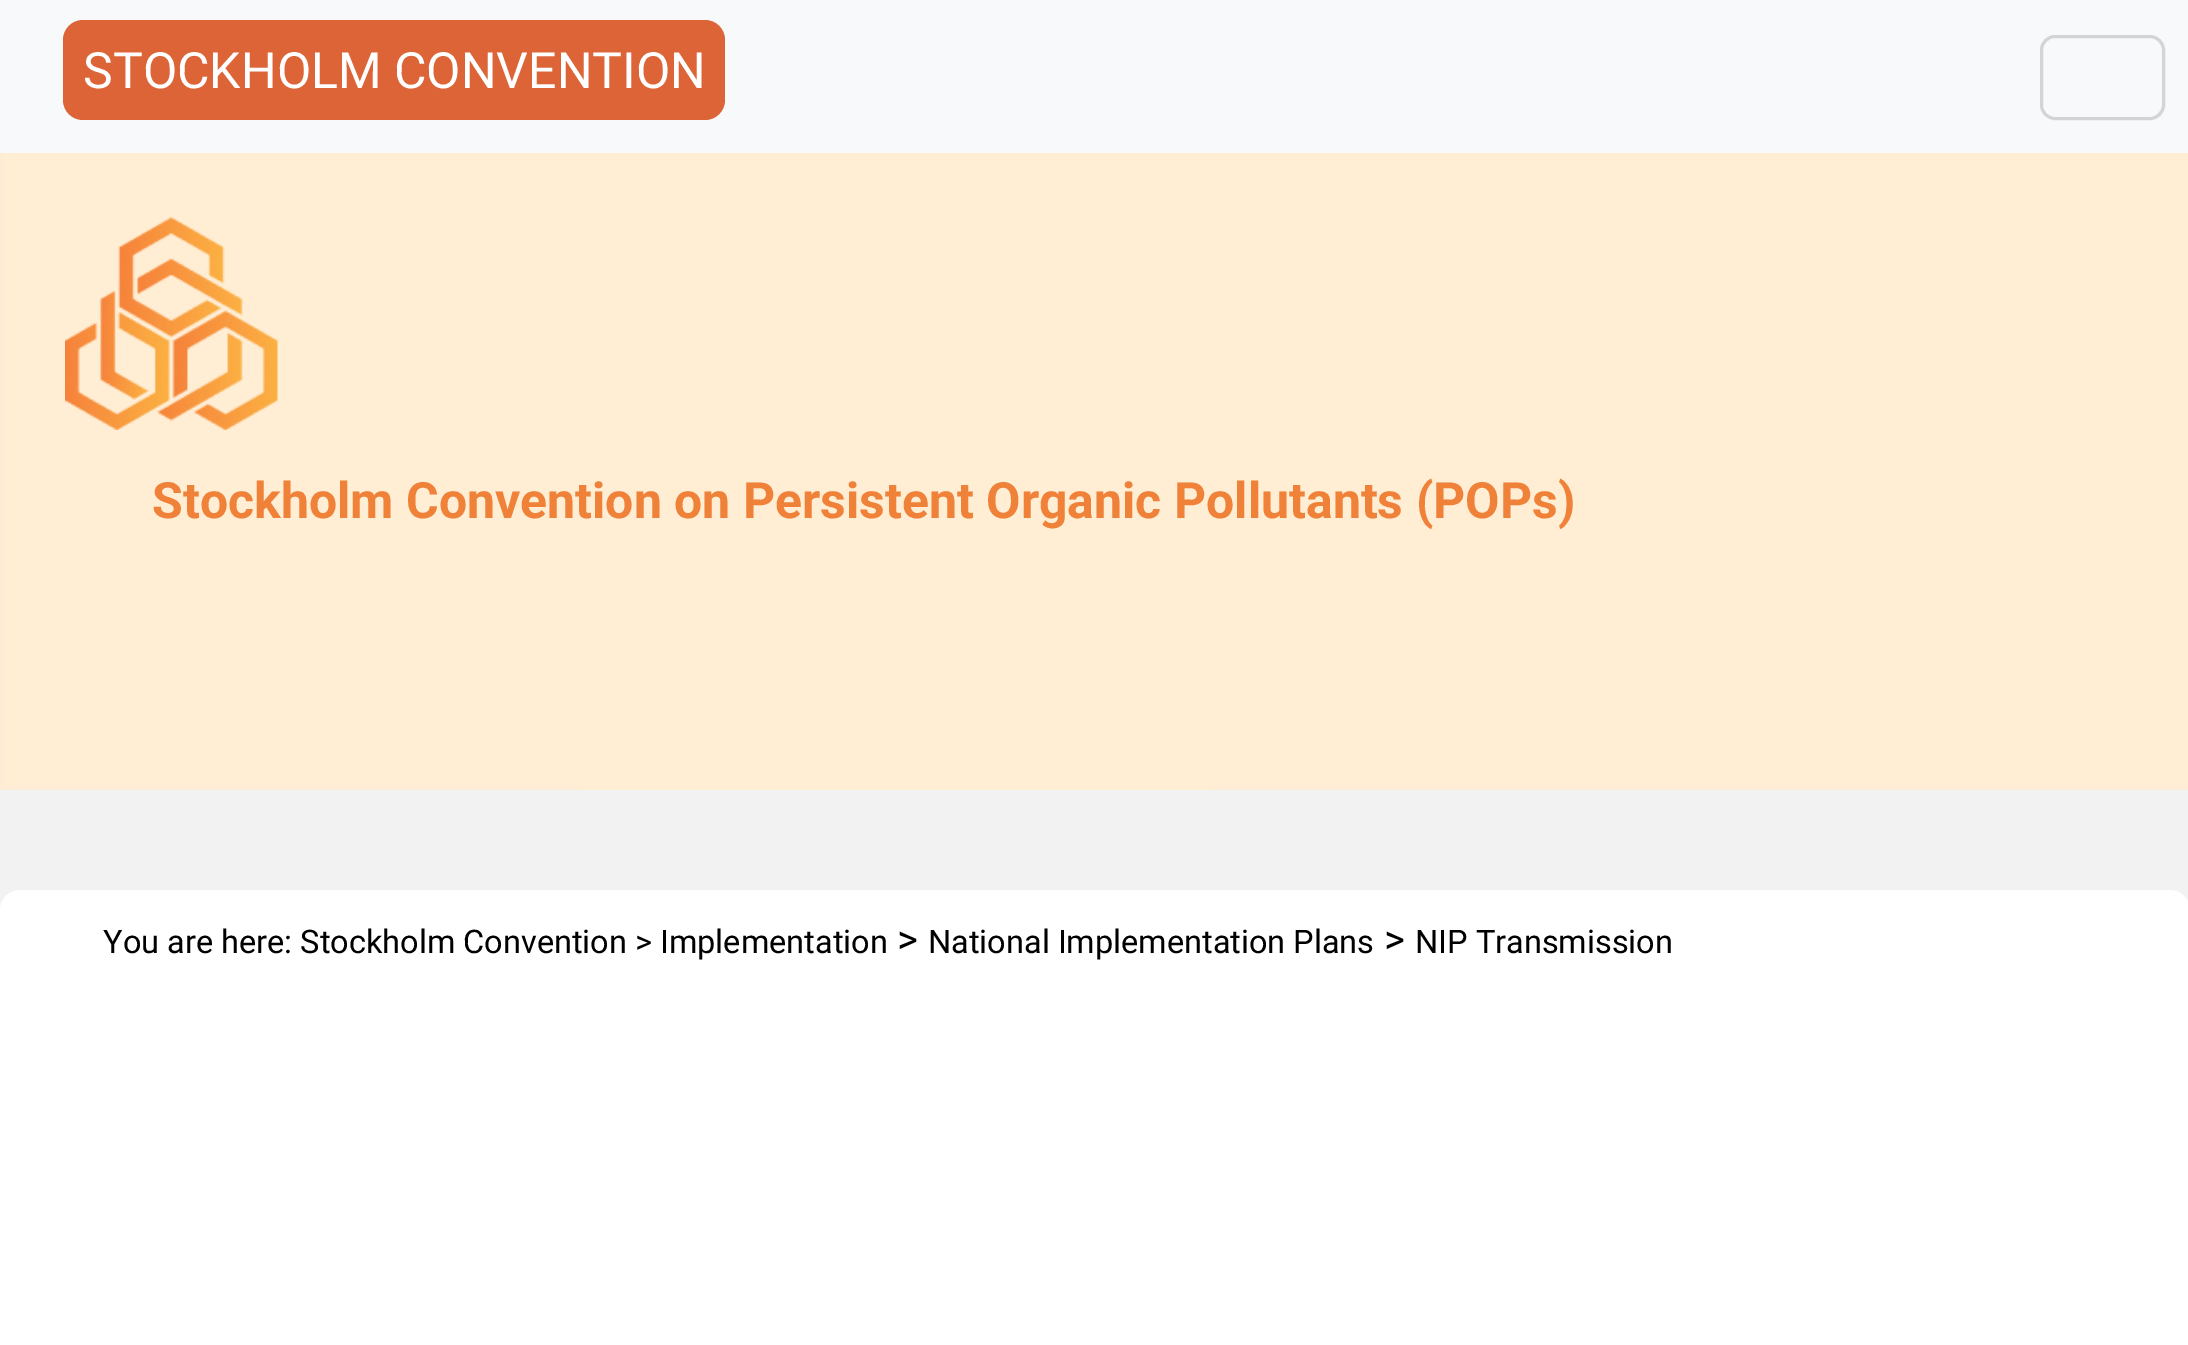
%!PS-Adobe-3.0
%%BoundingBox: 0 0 2188 1345
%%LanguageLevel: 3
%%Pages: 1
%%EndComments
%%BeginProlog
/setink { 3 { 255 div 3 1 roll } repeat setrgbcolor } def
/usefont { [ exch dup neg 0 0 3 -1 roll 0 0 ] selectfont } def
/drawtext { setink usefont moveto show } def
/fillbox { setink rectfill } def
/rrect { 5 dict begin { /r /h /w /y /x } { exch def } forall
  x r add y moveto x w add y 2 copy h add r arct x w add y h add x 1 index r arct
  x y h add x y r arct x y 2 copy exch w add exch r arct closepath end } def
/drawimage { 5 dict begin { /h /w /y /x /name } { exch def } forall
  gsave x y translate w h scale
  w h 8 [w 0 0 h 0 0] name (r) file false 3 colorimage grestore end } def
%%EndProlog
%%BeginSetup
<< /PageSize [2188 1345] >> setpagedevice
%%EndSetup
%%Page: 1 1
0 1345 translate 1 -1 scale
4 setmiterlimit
0 0 2188 1345 242 242 242 fillbox
(assets/img1.rgb) 0 153 2188 637 drawimage
0 0 2188 153 248 249 250 fillbox
220 100 55 setink
63 20 662 100 20 rrect fill
(STOCKHOLM CONVENTION) 83 88 /Roboto-Regular 50 255 255 255 drawtext
211 212 213 setink
3 setlinewidth
2041.5 36.5 122 82 13.5 rrect stroke
(assets/img2.rgb) 65 217 213 213 drawimage
(Stockholm Convention on Persistent Organic Pollutants \(POPs\)) 152 518 /Roboto-Bold 50 239 129 56 drawtext
255 255 255 setink
4 894 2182 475 16 rrect gsave fill grestore
8 setlinewidth
stroke
(You are here: Stockholm Convention > Implementation) 103 953 /Roboto-Regular 32.5 0 0 0 drawtext
(>) 897 953 /Roboto-Regular 40 0 0 0 drawtext
(National Implementation Plans) 928 953 /Roboto-Regular 32.5 0 0 0 drawtext
(>) 1384 953 /Roboto-Regular 40 0 0 0 drawtext
(NIP Transmission) 1415 953 /Roboto-Regular 32.5 0 0 0 drawtext
showpage
%%EOF
